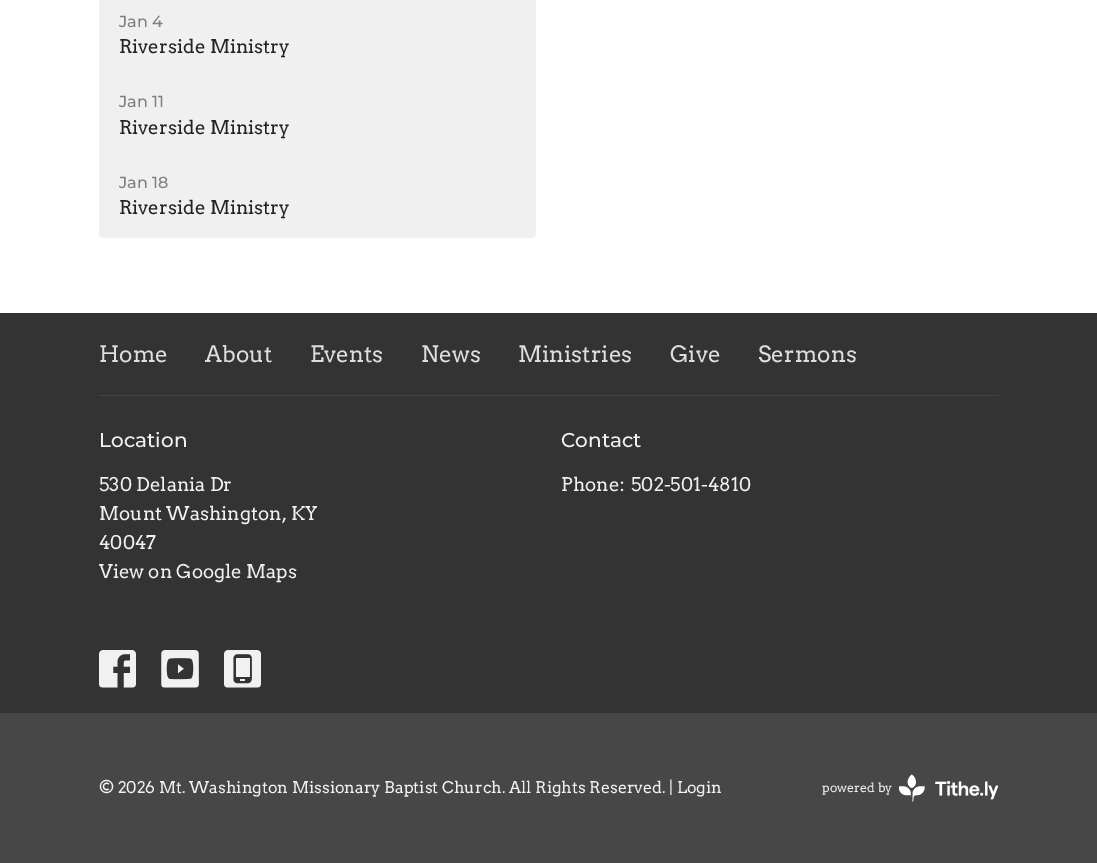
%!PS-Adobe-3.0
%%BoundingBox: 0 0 1097 863
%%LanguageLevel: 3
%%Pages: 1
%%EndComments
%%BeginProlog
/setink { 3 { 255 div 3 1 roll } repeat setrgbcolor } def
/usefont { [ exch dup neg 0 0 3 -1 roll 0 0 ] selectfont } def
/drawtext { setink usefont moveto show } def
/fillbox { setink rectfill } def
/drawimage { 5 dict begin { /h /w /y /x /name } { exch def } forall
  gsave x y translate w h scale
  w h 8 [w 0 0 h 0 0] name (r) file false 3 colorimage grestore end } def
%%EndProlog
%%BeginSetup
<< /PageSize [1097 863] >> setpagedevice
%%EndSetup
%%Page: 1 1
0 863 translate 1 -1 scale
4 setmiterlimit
0 0 1097 863 255 255 255 fillbox
99 0 437 155 240 240 240 fillbox
(Jan 4) 119 27 /Montserrat-Medium 16 128 128 128 drawtext
(Riverside Ministry) 119 53 /Arvo-Regular 18.75 34 34 34 drawtext
(Jan 11) 119 107 /Montserrat-Medium 16 128 128 128 drawtext
(Riverside Ministry) 119 134 /Arvo-Regular 18.75 34 34 34 drawtext
240 240 240 setink
99 155 moveto 536 155 lineto 536 233 lineto 536 236 534 238 531 238 curveto 104 238 lineto 101 238 99 236 99 233 curveto closepath fill
(Jan 18) 119 188 /Montserrat-Medium 16 128 128 128 drawtext
(Riverside Ministry) 119 214 /Arvo-Regular 18.75 34 34 34 drawtext
0 313 1097 400 51 51 51 fillbox
(Home) 99 362 /Arvo-Regular 22.5 222 222 222 drawtext
(About) 205 362 /Arvo-Regular 22.5 222 222 222 drawtext
(Events) 310 362 /Arvo-Regular 22.5 222 222 222 drawtext
(News) 421 362 /Arvo-Regular 22.5 222 222 222 drawtext
(Ministries) 518 362 /Arvo-Regular 22.5 222 222 222 drawtext
(Give) 670 362 /Arvo-Regular 22.5 222 222 222 drawtext
(Sermons) 758 362 /Arvo-Regular 22.5 222 222 222 drawtext
99 395 900 1 66 66 66 fillbox
(Location) 99 447 /Montserrat-Medium 20 241 241 241 drawtext
(530 Delania Dr) 99 491 /Arvo-Regular 18.75 241 241 241 drawtext
(Mount Washington, KY) 99 520 /Arvo-Regular 18.75 241 241 241 drawtext
(40047) 99 549 /Arvo-Regular 18.75 241 241 241 drawtext
(View on Google Maps) 99 578 /Arvo-Regular 18.75 241 241 241 drawtext
(Contact) 561 447 /Montserrat-Medium 20 241 241 241 drawtext
(Phone:) 561 491 /Arvo-Regular 18.75 241 241 241 drawtext
(502-501-4810) 631 491 /Arvo-Regular 18.75 241 241 241 drawtext
(assets/img1.rgb) 99 650 37 38 drawimage
(assets/img2.rgb) 161 650 38 38 drawimage
(assets/img3.rgb) 224 650 37 38 drawimage
0 713 1097 150 71 71 71 fillbox
(© 2026 Mt. Washington Missionary Baptist Church. All Rights Reserved. | Login) 99 793 /Arvo-Regular 16.1 241 241 241 drawtext
(powered by) 822 792 /Arvo-Regular 12.5 241 241 241 drawtext
(assets/img4.rgb) 899 774 99 28 drawimage
showpage
%%EOF
